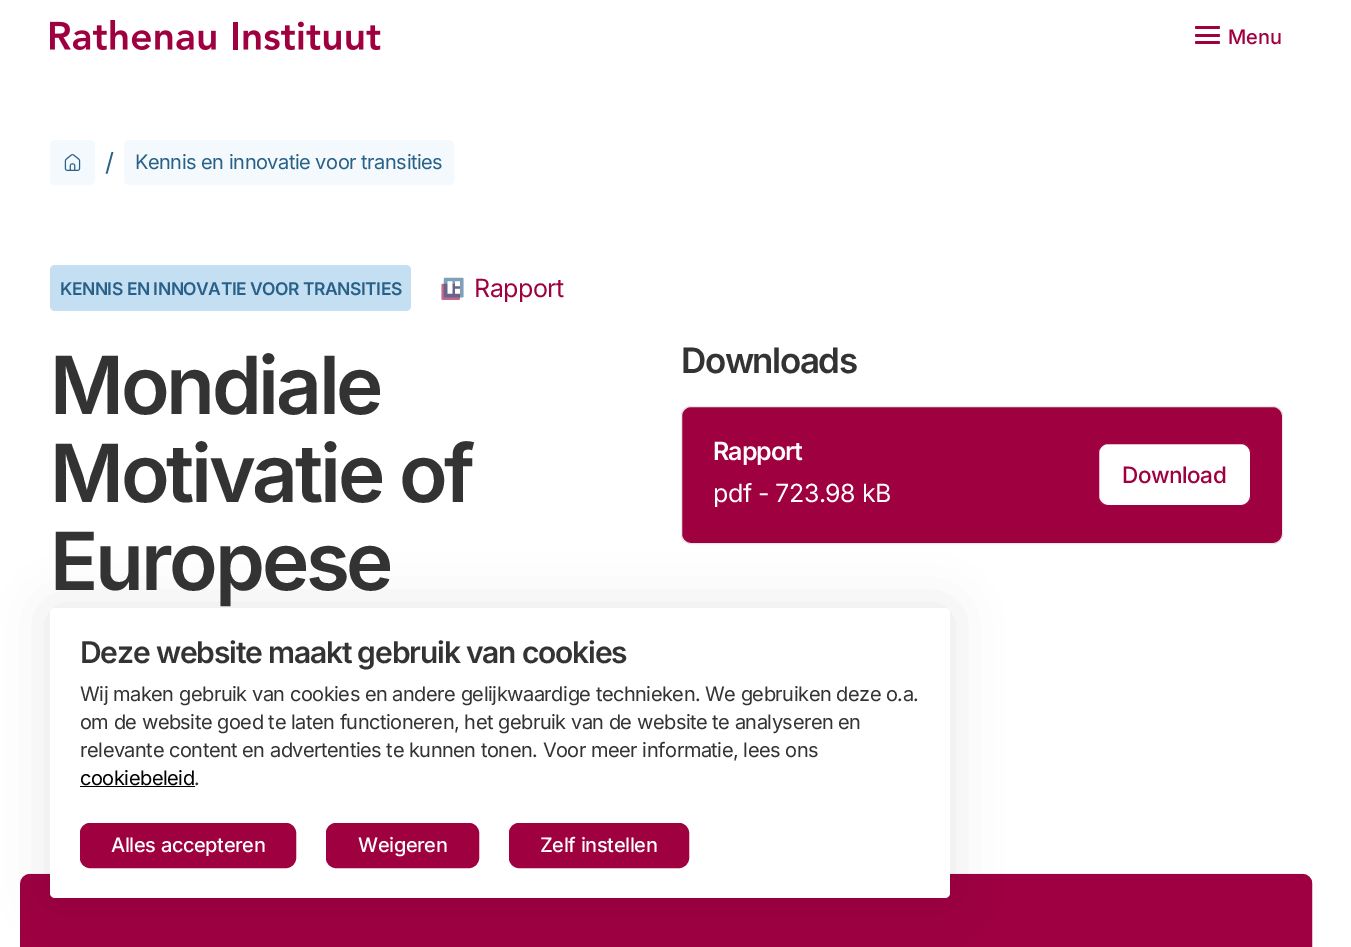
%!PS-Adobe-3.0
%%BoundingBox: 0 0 1351 947
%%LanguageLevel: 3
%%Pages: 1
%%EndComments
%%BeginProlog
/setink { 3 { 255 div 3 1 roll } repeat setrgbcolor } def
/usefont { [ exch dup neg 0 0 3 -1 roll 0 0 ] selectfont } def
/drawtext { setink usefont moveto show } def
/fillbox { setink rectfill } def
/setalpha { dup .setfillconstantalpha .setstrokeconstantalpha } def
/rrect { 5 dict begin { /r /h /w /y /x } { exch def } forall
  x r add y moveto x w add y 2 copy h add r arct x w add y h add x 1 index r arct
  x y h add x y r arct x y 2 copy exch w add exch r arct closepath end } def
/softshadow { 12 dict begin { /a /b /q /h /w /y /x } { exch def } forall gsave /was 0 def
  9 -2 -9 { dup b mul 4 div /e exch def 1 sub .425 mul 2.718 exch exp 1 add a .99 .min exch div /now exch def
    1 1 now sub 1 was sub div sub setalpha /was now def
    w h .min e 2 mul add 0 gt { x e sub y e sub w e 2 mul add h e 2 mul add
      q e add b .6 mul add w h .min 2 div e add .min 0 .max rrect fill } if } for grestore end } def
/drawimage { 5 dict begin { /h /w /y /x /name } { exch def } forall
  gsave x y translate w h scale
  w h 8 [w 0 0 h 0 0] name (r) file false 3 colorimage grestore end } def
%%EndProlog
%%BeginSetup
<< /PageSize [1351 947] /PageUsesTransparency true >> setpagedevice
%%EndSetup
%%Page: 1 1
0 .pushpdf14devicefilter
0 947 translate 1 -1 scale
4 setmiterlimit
0 0 1351 947 255 255 255 fillbox
(assets/img1.rgb) 50 20 331 30 drawimage
159 0 63 setink
1195 34 25 3 1.5 rrect fill
1195 26 25 3 1.5 rrect fill
1195 41 25 3 1.5 rrect fill
(Menu) 1228 44 /Inter-Medium 20 159 0 63 drawtext
243 249 252 setink
50.5 140.5 44 44 4.5 rrect gsave fill grestore
stroke
(assets/img2.rgb) 64 154 17 17 drawimage
/Inter-Regular 25 usefont
40 96 136 setink
105 171 moveto -0.5 0 (/) ashow
243 249 252 setink
124.5 140.5 329 44 4.5 rrect gsave fill grestore
stroke
/Inter-Regular 20 usefont
40 96 136 setink
135 169 moveto -0.5 0 (Kennis en innovatie voor transities) ashow
196 223 242 setink
50 265 361 46 5 rrect fill
/Inter-SemiBold 17.5 usefont
40 96 136 setink
60 295 moveto -0.5 0 (KENNIS EN INNOVATIE VOOR TRANSITIES) ashow
(assets/img3.rgb) 441 277 23 23 drawimage
/Inter-Regular 25 usefont
159 0 63 setink
474 297 moveto -0.5 0 (Rapport) ashow
/Inter-SemiBold 80 usefont
51 51 51 setink
50 414 moveto -3.25 0 (Mondiale) ashow
50 502 moveto -3.25 0 (Motivatie of) ashow
50 590 moveto -3.25 0 (Europese) ashow
/Inter-SemiBold 35 usefont
681 373 moveto -1.5 0 (Downloads) ashow
159 0 63 setink
681.5 406.5 601 137 9.5 rrect gsave fill grestore
231 232 234 setink
stroke
/Inter-SemiBold 25 usefont
255 255 255 setink
713 460 moveto -1 0 (Rapport) ashow
1098.5 443.5 152 62 9.5 rrect gsave fill grestore
159 0 63 setink
stroke
/Inter-Medium 22.5 usefont
1122 483 moveto -0.5 0 (Download) ashow
/Inter-Regular 25 usefont
255 255 255 setink
713 502 moveto -0.5 0 (pdf - 723.98 kB) ashow
(assets/img4.rgb) 20 873 1293 74 drawimage
0 0 0 setink
50 608 900 290 5 25 0.1 softshadow
255 255 255 setink
50 608 900 290 5 rrect fill
/Inter-SemiBold 30 usefont
51 51 51 setink
80 663 moveto -1.2 0 (Deze website maakt gebruik van cookies) ashow
/Inter-Regular 20 usefont
80 701 moveto -0.5 0 (Wij maken gebruik van cookies en andere gelijkwaardige technieken. We gebruiken deze o.a.) ashow
80 729 moveto -0.5 0 (om de website goed te laten functioneren, het gebruik van de website te analyseren en) ashow
80 757 moveto -0.5 0 (relevante content en advertenties te kunnen tonen. Voor meer informatie, lees ons) ashow
0 0 0 setink
80 785 moveto -0.5 0 (cookiebeleid) ashow
80 786 115 1 0 0 0 fillbox
51 51 51 setink
194 785 moveto -0.5 0 (.) ashow
159 0 63 setink
80.5 823.5 215 44 9.5 rrect gsave fill grestore
stroke
/Inter-Medium 20 usefont
255 255 255 setink
111 852 moveto -0.4 0 (Alles accepteren) ashow
159 0 63 setink
326.5 823.5 152 44 9.5 rrect gsave fill grestore
stroke
255 255 255 setink
358 852 moveto -0.4 0 (Weigeren) ashow
159 0 63 setink
509.5 823.5 179 44 9.5 rrect gsave fill grestore
stroke
255 255 255 setink
540 852 moveto -0.4 0 (Zelf instellen) ashow
.poppdf14devicefilter showpage
%%EOF
